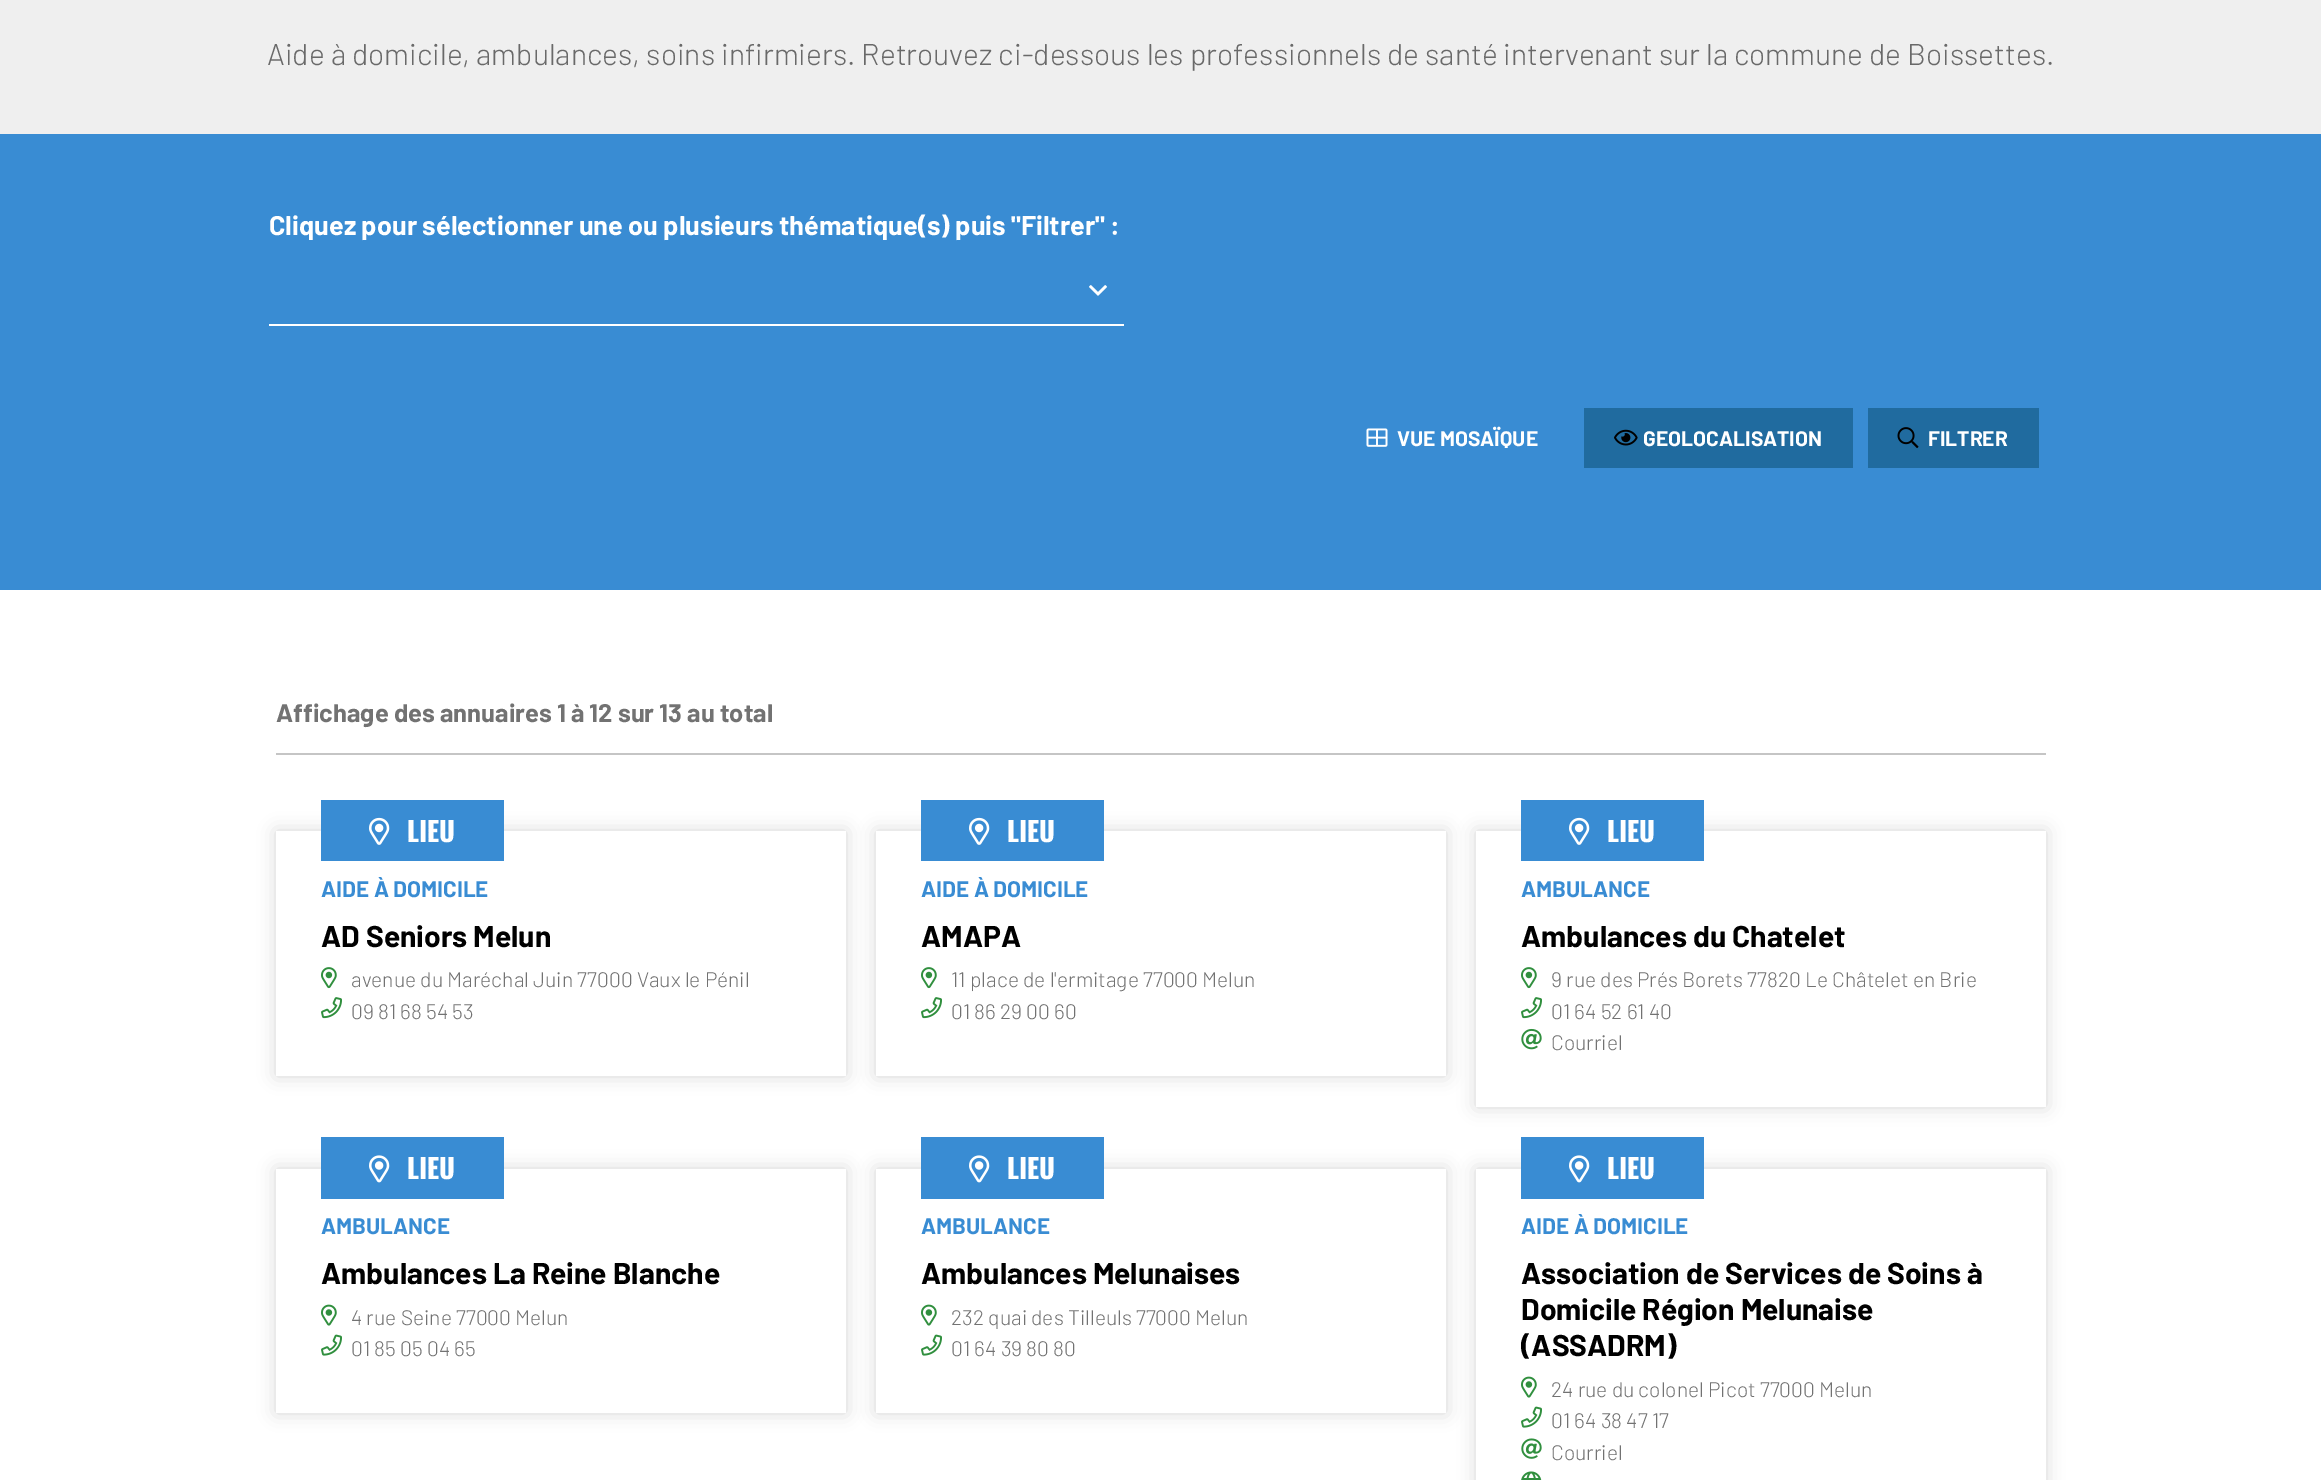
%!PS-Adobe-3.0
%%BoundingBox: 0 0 2321 1480
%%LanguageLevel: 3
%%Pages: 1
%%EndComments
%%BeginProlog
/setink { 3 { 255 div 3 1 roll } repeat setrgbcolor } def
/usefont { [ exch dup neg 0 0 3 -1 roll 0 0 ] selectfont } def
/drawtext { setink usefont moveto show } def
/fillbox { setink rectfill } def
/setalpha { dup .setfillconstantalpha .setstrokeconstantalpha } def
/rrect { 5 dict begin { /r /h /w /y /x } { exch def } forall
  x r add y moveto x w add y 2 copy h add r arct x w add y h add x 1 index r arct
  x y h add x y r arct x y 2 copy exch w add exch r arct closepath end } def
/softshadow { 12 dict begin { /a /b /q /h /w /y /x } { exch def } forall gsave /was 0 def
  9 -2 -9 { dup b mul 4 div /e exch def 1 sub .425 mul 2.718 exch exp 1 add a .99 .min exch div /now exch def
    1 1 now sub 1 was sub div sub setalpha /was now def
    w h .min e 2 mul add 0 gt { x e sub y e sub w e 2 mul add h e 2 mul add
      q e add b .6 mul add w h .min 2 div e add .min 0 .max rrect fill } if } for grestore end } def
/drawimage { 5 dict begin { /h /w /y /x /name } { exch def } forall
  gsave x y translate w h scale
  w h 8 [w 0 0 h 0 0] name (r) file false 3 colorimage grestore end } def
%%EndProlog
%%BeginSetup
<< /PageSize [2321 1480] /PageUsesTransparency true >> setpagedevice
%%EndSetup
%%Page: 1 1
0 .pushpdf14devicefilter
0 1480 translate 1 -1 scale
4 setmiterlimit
0 0 2321 1480 255 255 255 fillbox
0 0 2321 134 239 239 239 fillbox
(Aide à domicile, ambulances, soins infirmiers. Retrouvez ci-dessous les professionnels de santé intervenant sur la commune de Boissettes.) 267 65 /Barlow-Light 30 105 105 105 drawtext
0 134 2321 456 57 140 211 fillbox
(Cliquez pour sélectionner une ou plusieurs thématique\(s\) puis "Filtrer" :) 269 235 /Barlow-Bold 27 255 255 255 drawtext
(assets/img1.rgb) 1089 285 18 11 drawimage
269 324 855 2 255 255 255 fillbox
(assets/img2.rgb) 1366 428 22 19 drawimage
(VUE MOSAÏQUE) 1397 446 /Barlow-Bold 21 255 255 255 drawtext
1584 408 269 60 32 107 159 fillbox
(assets/img3.rgb) 1614 429 24 17 drawimage
(GEOLOCALISATION) 1643 446 /Barlow-Bold 21 255 255 255 drawtext
1868 408 171 60 32 107 159 fillbox
(assets/img4.rgb) 1897 427 22 22 drawimage
(FILTRER) 1928 446 /Barlow-Bold 21 255 255 255 drawtext
276 753 1770 2 197 197 197 fillbox
(Affichage des annuaires 1 à 12 sur 13 au total) 276 722 /Barlow-Bold 25.5 114 114 114 drawtext
0 0 0 setink
276 831 570 245 0 9 0.16 softshadow
276 831 570 245 255 255 255 fillbox
321 800 183 61 57 140 211 fillbox
(assets/img5.rgb) 369 817 21 28 drawimage
(LIEU) 407 842 /Oswald-Bold 27 255 255 255 drawtext
(AIDE À DOMICILE) 321 897 /Barlow-Bold 22.5 57 140 211 drawtext
(AD Seniors Melun) 321 947 /Barlow-Bold 30 0 0 0 drawtext
(assets/img6.rgb) 321 967 16 22 drawimage
(avenue du Maréchal Juin 77000 Vaux le Pénil) 351 987 /Barlow-Light 21 114 114 114 drawtext
(assets/img7.rgb) 321 997 21 22 drawimage
(09 81 68 54 53) 351 1019 /Barlow-Light 21 114 114 114 drawtext
0 0 0 setink
876 831 570 245 0 9 0.16 softshadow
876 831 570 245 255 255 255 fillbox
921 800 183 61 57 140 211 fillbox
(assets/img5.rgb) 969 817 21 28 drawimage
(LIEU) 1007 842 /Oswald-Bold 27 255 255 255 drawtext
(AIDE À DOMICILE) 921 897 /Barlow-Bold 22.5 57 140 211 drawtext
(AMAPA) 921 947 /Barlow-Bold 30 0 0 0 drawtext
(assets/img6.rgb) 921 967 16 22 drawimage
(11 place de l'ermitage 77000 Melun) 951 987 /Barlow-Light 21 114 114 114 drawtext
(assets/img7.rgb) 921 997 21 22 drawimage
(01 86 29 00 60) 951 1019 /Barlow-Light 21 114 114 114 drawtext
gsave
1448 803 moveto 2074 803 lineto 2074 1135 lineto 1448 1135 lineto closepath 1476 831 moveto 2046 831 lineto 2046 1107 lineto 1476 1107 lineto closepath eoclip newpath
0 0 0 setink
1476 831 570 276 0 9 0.16 softshadow
grestore
1521 800 183 61 57 140 211 fillbox
(assets/img5.rgb) 1569 817 21 28 drawimage
(LIEU) 1607 842 /Oswald-Bold 27 255 255 255 drawtext
(AMBULANCE) 1521 897 /Barlow-Bold 22.5 57 140 211 drawtext
(Ambulances du Chatelet) 1521 947 /Barlow-Bold 30 0 0 0 drawtext
(assets/img6.rgb) 1521 967 16 22 drawimage
(9 rue des Prés Borets 77820 Le Châtelet en Brie) 1551 987 /Barlow-Light 21 114 114 114 drawtext
(assets/img7.rgb) 1521 997 21 22 drawimage
(01 64 52 61 40) 1551 1019 /Barlow-Light 21 114 114 114 drawtext
(assets/img8.rgb) 1521 1028 21 22 drawimage
(Courriel) 1551 1050 /Barlow-Light 21 114 114 114 drawtext
gsave
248 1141 moveto 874 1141 lineto 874 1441 lineto 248 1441 lineto closepath 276 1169 moveto 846 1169 lineto 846 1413 lineto 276 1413 lineto closepath eoclip newpath
0 0 0 setink
276 1169 570 244 0 9 0.16 softshadow
grestore
321 1137 183 62 57 140 211 fillbox
(assets/img9.rgb) 369 1155 21 28 drawimage
(LIEU) 407 1179 /Oswald-Bold 27 255 255 255 drawtext
(AMBULANCE) 321 1234 /Barlow-Bold 22.5 57 140 211 drawtext
(Ambulances La Reine Blanche) 321 1284 /Barlow-Bold 30 0 0 0 drawtext
(assets/img10.rgb) 321 1304 16 22 drawimage
(4 rue Seine 77000 Melun) 351 1325 /Barlow-Light 21 114 114 114 drawtext
(assets/img11.rgb) 321 1334 21 22 drawimage
(01 85 05 04 65) 351 1356 /Barlow-Light 21 114 114 114 drawtext
gsave
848 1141 moveto 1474 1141 lineto 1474 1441 lineto 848 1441 lineto closepath 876 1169 moveto 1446 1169 lineto 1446 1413 lineto 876 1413 lineto closepath eoclip newpath
0 0 0 setink
876 1169 570 244 0 9 0.16 softshadow
grestore
921 1137 183 62 57 140 211 fillbox
(assets/img9.rgb) 969 1155 21 28 drawimage
(LIEU) 1007 1179 /Oswald-Bold 27 255 255 255 drawtext
(AMBULANCE) 921 1234 /Barlow-Bold 22.5 57 140 211 drawtext
(Ambulances Melunaises) 921 1284 /Barlow-Bold 30 0 0 0 drawtext
(assets/img10.rgb) 921 1304 16 22 drawimage
(232 quai des Tilleuls 77000 Melun) 951 1325 /Barlow-Light 21 114 114 114 drawtext
(assets/img11.rgb) 921 1334 21 22 drawimage
(01 64 39 80 80) 951 1356 /Barlow-Light 21 114 114 114 drawtext
gsave
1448 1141 moveto 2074 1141 lineto 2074 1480 lineto 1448 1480 lineto closepath 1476 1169 moveto 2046 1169 lineto 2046 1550 lineto 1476 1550 lineto closepath eoclip newpath
0 0 0 setink
1476 1169 570 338 0 9 0.16 softshadow
grestore
1521 1137 183 62 57 140 211 fillbox
(assets/img9.rgb) 1569 1155 21 28 drawimage
(LIEU) 1607 1179 /Oswald-Bold 27 255 255 255 drawtext
(AIDE À DOMICILE) 1521 1234 /Barlow-Bold 22.5 57 140 211 drawtext
(Association de Services de Soins à) 1521 1284 /Barlow-Bold 30 0 0 0 drawtext
(Domicile Région Melunaise) 1521 1320 /Barlow-Bold 30 0 0 0 drawtext
(\(ASSADRM\)) 1521 1356 /Barlow-Bold 30 0 0 0 drawtext
(assets/img10.rgb) 1521 1376 16 22 drawimage
(24 rue du colonel Picot 77000 Melun) 1551 1397 /Barlow-Light 21 114 114 114 drawtext
(assets/img11.rgb) 1521 1406 21 22 drawimage
(01 64 38 47 17) 1551 1428 /Barlow-Light 21 114 114 114 drawtext
(assets/img12.rgb) 1521 1438 21 21 drawimage
(Courriel) 1551 1460 /Barlow-Light 21 114 114 114 drawtext
(assets/img13.rgb) 1521 1471 21 9 drawimage
.poppdf14devicefilter showpage
%%EOF
